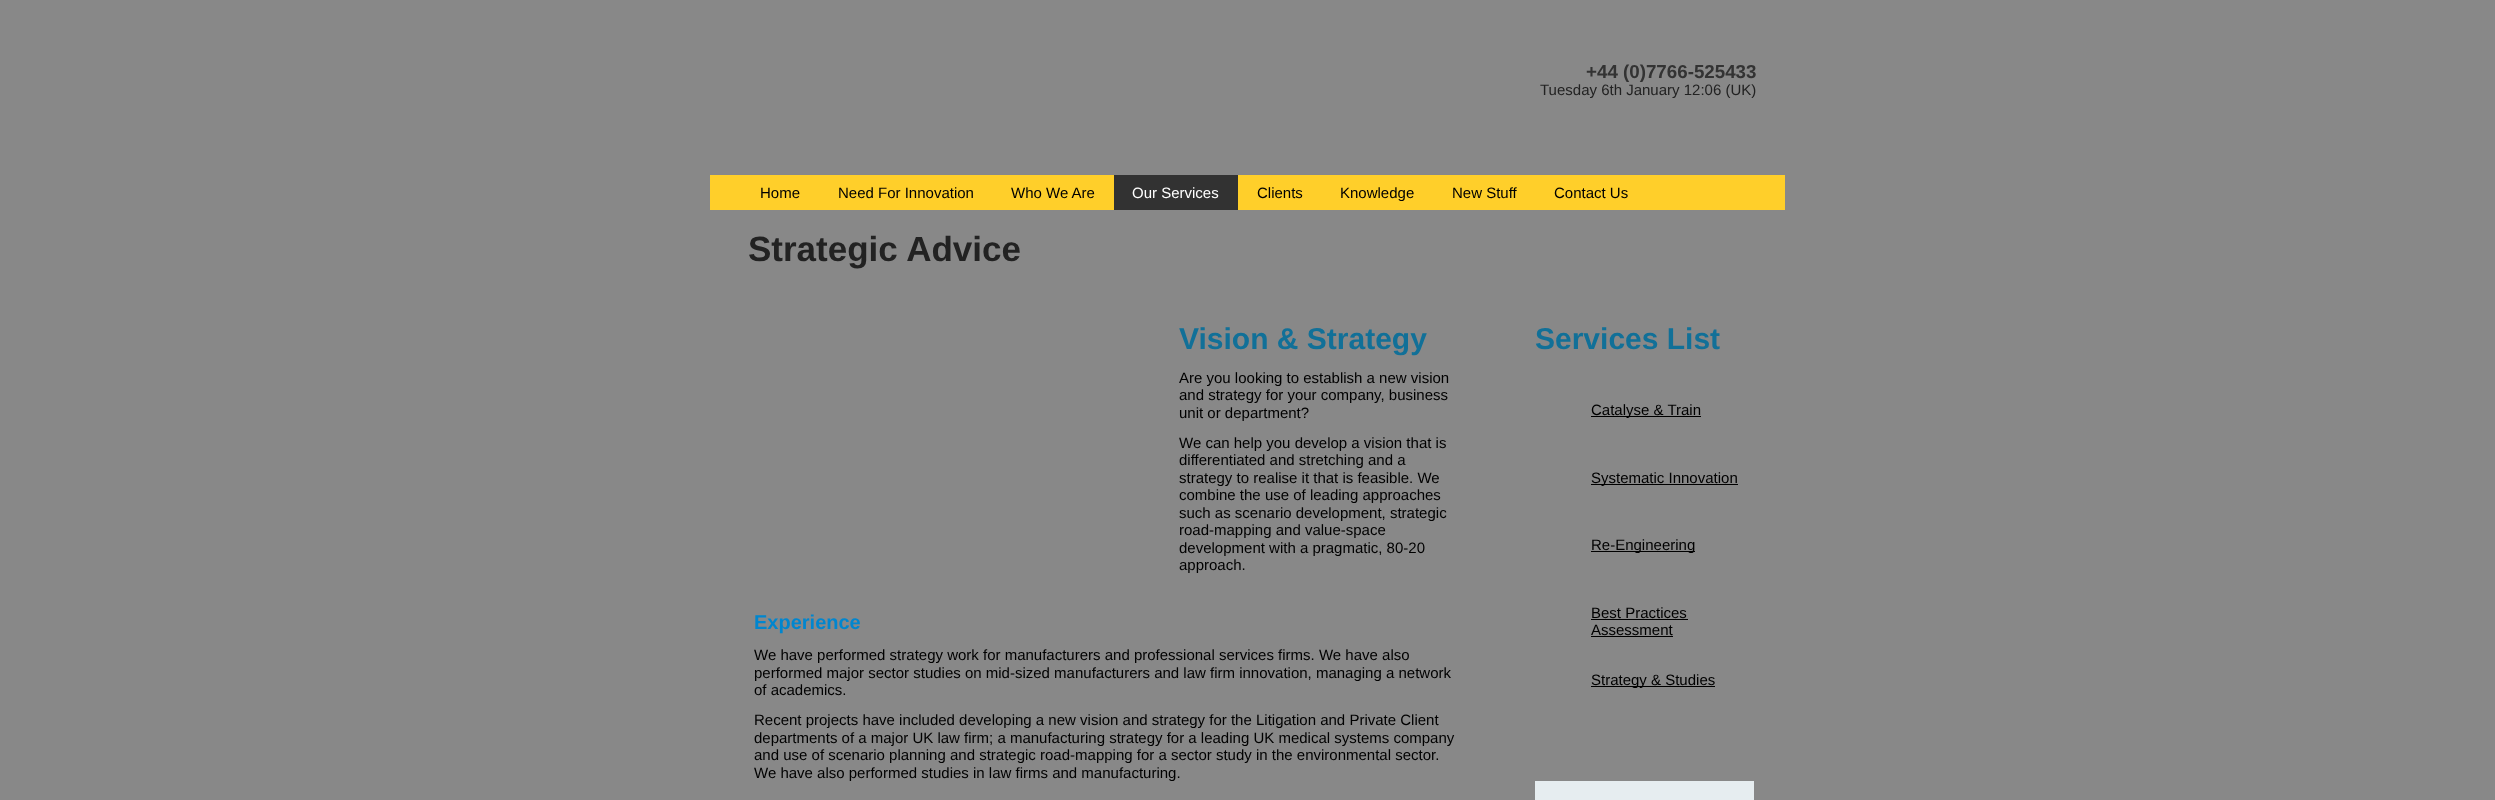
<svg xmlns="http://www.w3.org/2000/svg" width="2495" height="800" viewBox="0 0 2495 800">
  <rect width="100%" height="100%" fill="#888"/>
  <path d="M710 175h1075v35H710z" fill="#ffcf2a"/>
  <path d="M1114 175h124v35H1114z" fill="#323232"/>
  <path d="M1591 416h110v1H1591z" fill="#000"/>
  <path d="M1591 484h147v1H1591z" fill="#000"/>
  <path d="M1591 551h104v1H1591z" fill="#000"/>
  <path d="M1591 619h97v1H1591z" fill="#000"/>
  <path d="M1591 636h82v1H1591z" fill="#000"/>
  <path d="M1591 686h124v1H1591z" fill="#000"/>
  <path d="M1535 781h219v19H1535z" fill="#e6edf0"/>
  <text x="1586" y="78" font-family="Liberation Sans" font-size="18.75" font-weight="bold" fill="#333">+44 (0)7766-525433</text>
  <text x="1540" y="95" font-family="Liberation Sans" font-size="15" fill="#222">Tuesday 6th January 12:06 (UK)</text>
  <g font-family="Liberation Sans" font-size="15" fill="#000">
    <text x="760" y="198">Home</text>
    <text x="838" y="198">Need For Innovation</text>
    <text x="1011" y="198">Who We Are</text>
  </g>
  <text x="1132" y="198" font-family="Liberation Sans" font-size="15" fill="#fff">Our Services</text>
  <g font-family="Liberation Sans" font-size="15" fill="#000">
    <text x="1257" y="198">Clients</text>
    <text x="1340" y="198">Knowledge</text>
    <text x="1452" y="198">New Stuff</text>
    <text x="1554" y="198">Contact Us</text>
  </g>
  <text x="748" y="261" font-family="Liberation Sans" font-size="35" font-weight="bold" fill="#222">Strategic Advice</text>
  <text x="1179" y="349" font-family="Liberation Sans" font-size="30" font-weight="bold" fill="#117098">Vision &amp; Strategy</text>
  <g font-family="Liberation Sans" font-size="15" fill="#000">
    <text x="1179" y="383">Are you looking to establish a new vision</text>
    <text x="1179" y="400">and strategy for your company, business</text>
    <text x="1179" y="418">unit or department?</text>
    <text x="1179" y="448">We can help you develop a vision that is</text>
    <text x="1179" y="465">differentiated and stretching and a</text>
    <text x="1179" y="483">strategy to realise it that is feasible. We</text>
    <text x="1179" y="500">combine the use of leading approaches</text>
    <text x="1179" y="518">such as scenario development, strategic</text>
    <text x="1179" y="535">road-mapping and value-space</text>
    <text x="1179" y="553">development with a pragmatic, 80-20</text>
    <text x="1179" y="570">approach.</text>
  </g>
  <text x="754" y="629" font-family="Liberation Sans" font-size="20" font-weight="bold" fill="#0086cf">Experience</text>
  <g font-family="Liberation Sans" font-size="15" fill="#000">
    <text x="754" y="660">We have performed strategy work for manufacturers and professional services firms. We have also</text>
    <text x="754" y="678">performed major sector studies on mid-sized manufacturers and law firm innovation, managing a network</text>
    <text x="754" y="695">of academics.</text>
    <text x="754" y="725">Recent projects have included developing a new vision and strategy for the Litigation and Private Client</text>
    <text x="754" y="743">departments of a major UK law firm; a manufacturing strategy for a leading UK medical systems company</text>
    <text x="754" y="760">and use of scenario planning and strategic road-mapping for a sector study in the environmental sector.</text>
    <text x="754" y="778">We have also performed studies in law firms and manufacturing.</text>
  </g>
  <text x="1535" y="349" font-family="Liberation Sans" font-size="30" font-weight="bold" fill="#117098">Services List</text>
  <g font-family="Liberation Sans" font-size="15" fill="#000">
    <text x="1591" y="415">Catalyse &amp; Train</text>
    <text x="1591" y="483">Systematic Innovation</text>
    <text x="1591" y="550">Re-Engineering</text>
    <text x="1591" y="618">Best Practices</text>
    <text x="1591" y="635">Assessment</text>
    <text x="1591" y="685">Strategy &amp; Studies</text>
  </g>
</svg>
